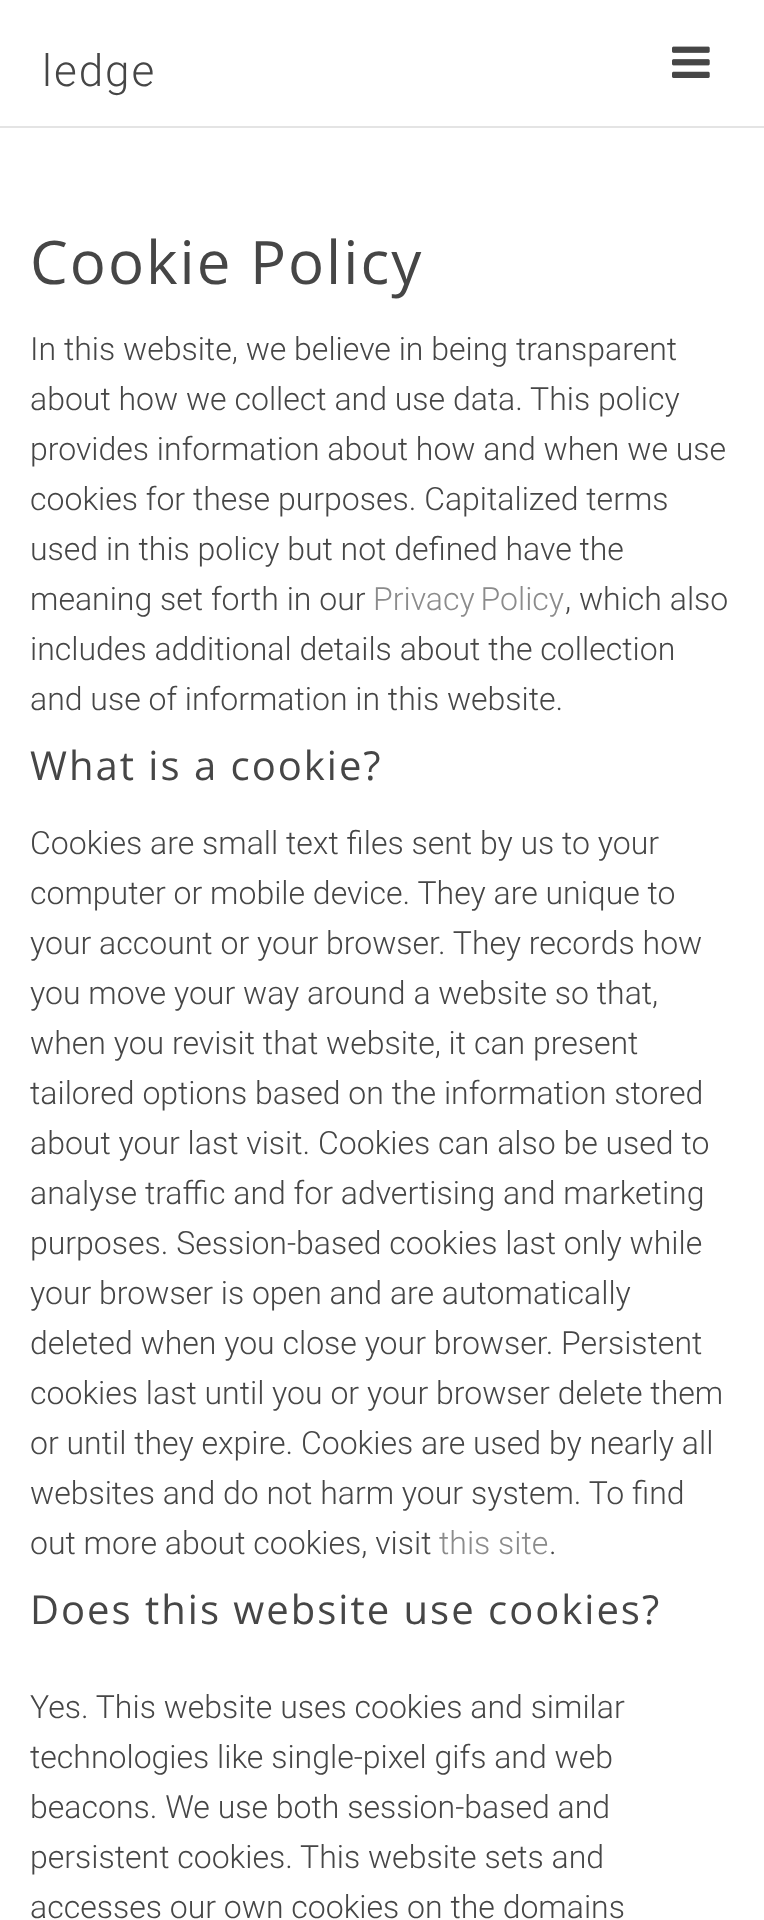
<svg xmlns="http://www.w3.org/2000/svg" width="764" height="1920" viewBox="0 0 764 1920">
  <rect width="100%" height="100%" fill="#fff"/>
  <path d="M0 126h764v2H0z" fill="#e4e4e4"/>
  <image x="672" y="46" width="38" height="32" href="img/1.png"/>
  <text x="42" y="86" font-family="Roboto" font-size="44" font-weight="300" letter-spacing="2" fill="#464646">ledge</text>
  <text x="30" y="284" font-family="Open Sans" font-size="60" letter-spacing="2" fill="#464646">Cookie Policy</text>
  <g font-family="Roboto" font-size="32" font-weight="300" fill="#464646">
    <text x="30" y="360">In this website, we believe in being transparent</text>
    <text x="30" y="410">about how we collect and use data. This policy</text>
    <text x="30" y="460">provides information about how and when we use</text>
    <text x="30" y="510">cookies for these purposes. Capitalized terms</text>
    <text x="30" y="560">used in this policy but not defined have the</text>
    <text x="30" y="610">meaning set forth in our</text>
  </g>
  <text x="373" y="610" word-spacing="-2" font-family="Roboto" font-size="32" font-weight="300" fill="#8b8b8b">Privacy Policy</text>
  <g font-family="Roboto" font-size="32" font-weight="300" fill="#464646">
    <text x="565" y="610">, which also</text>
    <text x="30" y="660">includes additional details about the collection</text>
    <text x="30" y="710">and use of information in this website.</text>
  </g>
  <text x="30" y="780" font-family="Open Sans" font-size="40" letter-spacing="2" fill="#464646">What is a cookie?</text>
  <g font-family="Roboto" font-size="32" font-weight="300" fill="#464646">
    <text x="30" y="854">Cookies are small text files sent by us to your</text>
    <text x="30" y="904">computer or mobile device. They are unique to</text>
    <text x="30" y="954">your account or your browser. They records how</text>
    <text x="30" y="1004">you move your way around a website so that,</text>
    <text x="30" y="1054">when you revisit that website, it can present</text>
    <text x="30" y="1104">tailored options based on the information stored</text>
    <text x="30" y="1154">about your last visit. Cookies can also be used to</text>
    <text x="30" y="1204">analyse traffic and for advertising and marketing</text>
    <text x="30" y="1254">purposes. Session-based cookies last only while</text>
    <text x="30" y="1304">your browser is open and are automatically</text>
    <text x="30" y="1354">deleted when you close your browser. Persistent</text>
    <text x="30" y="1404">cookies last until you or your browser delete them</text>
    <text x="30" y="1454">or until they expire. Cookies are used by nearly all</text>
    <text x="30" y="1504">websites and do not harm your system. To find</text>
    <text x="30" y="1554">out more about cookies, visit</text>
  </g>
  <text x="439" y="1554" font-family="Roboto" font-size="32" font-weight="300" fill="#8b8b8b">this site</text>
  <text x="549" y="1554" font-family="Roboto" font-size="32" font-weight="300" fill="#464646">.</text>
  <text x="30" y="1624" font-family="Open Sans" font-size="40" letter-spacing="2" fill="#464646">Does this website use cookies?</text>
  <g font-family="Roboto" font-size="32" font-weight="300" fill="#464646">
    <text x="30" y="1718">Yes. This website uses cookies and similar</text>
    <text x="30" y="1768">technologies like single-pixel gifs and web</text>
    <text x="30" y="1818">beacons. We use both session-based and</text>
    <text x="30" y="1868">persistent cookies. This website sets and</text>
    <text x="30" y="1918">accesses our own cookies on the domains</text>
  </g>
</svg>
